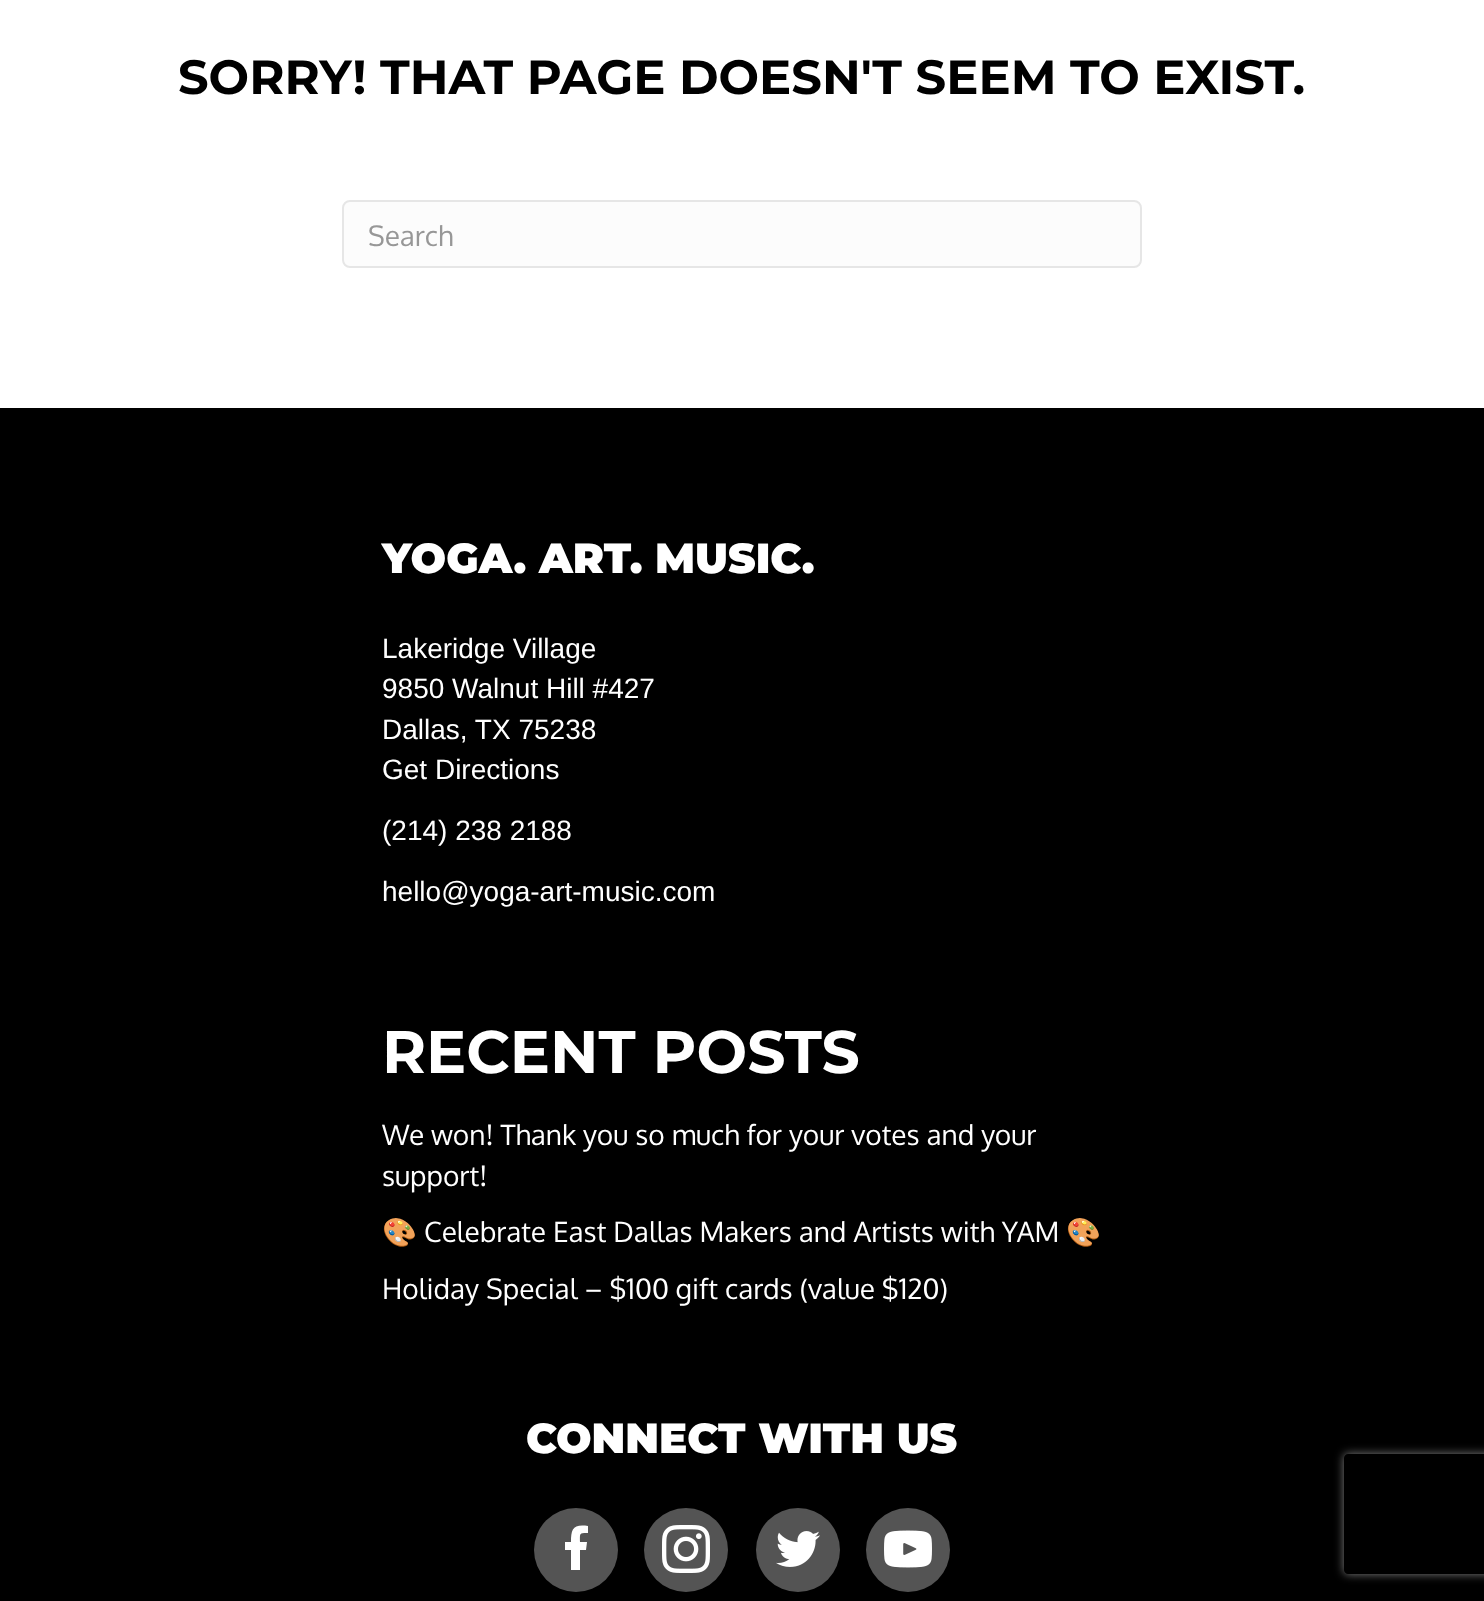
<svg xmlns="http://www.w3.org/2000/svg" width="1484" height="1601" viewBox="0 0 1484 1601">
  <defs>
    <clipPath id="clip1"><path d="M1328 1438H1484V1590H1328ZM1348 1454H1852C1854 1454 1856 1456 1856 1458V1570C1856 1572 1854 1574 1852 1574H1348C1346 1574 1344 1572 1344 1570V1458C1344 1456 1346 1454 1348 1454Z" clip-rule="evenodd"/></clipPath>
  </defs>
  <rect width="100%" height="100%" fill="#fff"/>
  <rect x="343" y="201" width="798" height="66" rx="7" fill="#fcfcfc" stroke="#e6e6e6" stroke-width="2"/>
  <path d="M0 408h1484v1193H0z" fill="#000"/>
  <circle cx="576" cy="1550" r="42" fill="#545454"/>
  <path d="M588 1526V1533C579 1533 580 1533 580 1542H587L586 1550H580V1570H571V1550H565V1542H571C571 1529 573 1524 588 1526Z" fill="#fff"/>
  <circle cx="686" cy="1550" r="42" fill="#545454"/>
  <image x="662" y="1525" width="48" height="48" href="img/1.png"/>
  <circle cx="798" cy="1550" r="42" fill="#545454"/>
  <image x="776" y="1531" width="44" height="36" href="img/2.png"/>
  <circle cx="908" cy="1550" r="42" fill="#545454"/>
  <image x="884" y="1530" width="48" height="38" href="img/3.png"/>
  <g clip-path="url(#clip1)">
    <rect x="1344" y="1454" width="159" height="120" rx="4" fill="#808080" filter="blur(5px)"/>
  </g>
  <text x="178" y="94" font-family="Montserrat" font-size="48" font-weight="bold" fill="#000">SORRY! THAT PAGE DOESN'T SEEM TO EXIST.</text>
  <text x="368" y="246" font-family="Oxygen" font-size="28" fill="#979797">Search</text>
  <text x="382" y="573" font-family="Montserrat" font-size="42" font-weight="900" fill="#fff">YOGA. ART. MUSIC.</text>
  <g font-family="Liberation Sans" font-size="28" fill="#fff">
    <text x="382" y="658">Lakeridge Village</text>
    <text x="382" y="698">9850 Walnut Hill #427</text>
    <text x="382" y="739">Dallas, TX 75238</text>
    <text x="382" y="779">Get Directions</text>
    <text x="382" y="840">(214) 238 2188</text>
    <text x="382" y="901">hello@yoga-art-music.com</text>
  </g>
  <text x="382" y="1073" font-family="Montserrat" font-size="60" font-weight="bold" fill="#fff">RECENT POSTS</text>
  <g font-family="Oxygen" font-size="28" fill="#fff">
    <text x="382" y="1145">We won! Thank you so much for your votes and your</text>
    <text x="382" y="1186">support!</text>
  </g>
  <text x="382" y="1242" font-family="Noto Color Emoji" font-size="28" fill="#fff">🎨</text>
  <text x="424" y="1242" font-family="Oxygen" font-size="28" fill="#fff">Celebrate East Dallas Makers and Artists with YAM</text>
  <text x="1066" y="1242" font-family="Noto Color Emoji" font-size="28" fill="#fff">🎨</text>
  <text x="382" y="1299" font-family="Oxygen" font-size="28" fill="#fff">Holiday Special – $100 gift cards (value $120)</text>
  <text x="526" y="1453" font-family="Montserrat" font-size="42" font-weight="900" fill="#fff">CONNECT WITH US</text>
</svg>
